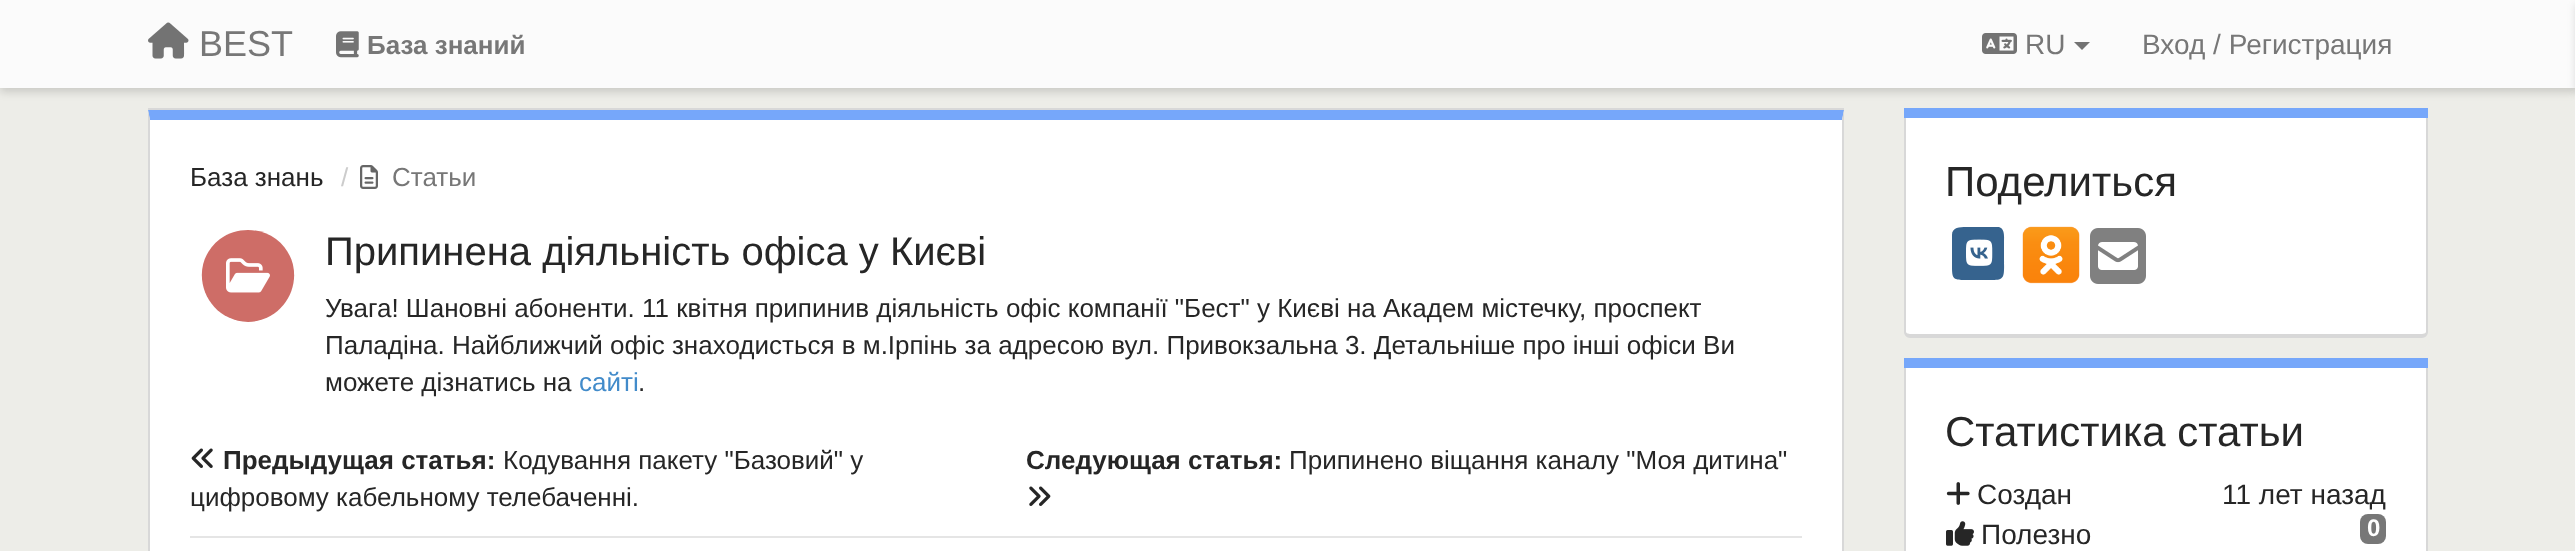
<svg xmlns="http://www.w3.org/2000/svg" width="2575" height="551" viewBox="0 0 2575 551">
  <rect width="100%" height="100%" fill="#edede8"/>
  <path d="M0 4h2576v88H0z" fill="#00000026" filter="blur(4px)"/>
  <path d="M0 0h2575v88H0z" fill="#fbfbfb"/>
  <image x="148" y="22" width="41" height="37" href="img/1.png"/>
  <image x="336" y="31" width="23" height="27" href="img/2.png"/>
  <image x="1982" y="33" width="35" height="21" href="img/3.png"/>
  <path d="M2074 42H2090L2082 50Z" fill="#737373"/>
  <path d="M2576 4h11v88H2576z" fill="#00000026" filter="blur(4px)"/>
  <path d="M148 108h1696v2H148z" fill="#d8d8d8"/>
  <path d="M150 120H1842V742C1842 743 1840 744 1838 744H154C152 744 150 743 150 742Z" fill="#fff"/>
  <path d="M148 110L150 120H1842L1844 110Z" fill="#76a7fa"/>
  <path d="M1844 110L1842 120V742L1841 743L1843 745L1844 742Z" fill="#d8d8d8"/>
  <path d="M150 120L148 110V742L149 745L151 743L150 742Z" fill="#d8d8d8"/>
  <image x="360" y="165" width="18" height="24" href="img/4.png"/>
  <path d="M248 322C292 321 311 266 276 239C268 233 258 230 248 230C238 230 228 233 220 239C185 266 204 321 248 322Z" fill="#ce6d67"/>
  <image x="226" y="258" width="44" height="35" href="img/5.png"/>
  <image x="191" y="448" width="22" height="20" href="img/6.png"/>
  <image x="1029" y="486" width="22" height="20" href="img/7.png"/>
  <path d="M190 536h1612v2H190z" fill="#e5e5e5"/>
  <path d="M1904 108h524v10H1904z" fill="#76a7fa"/>
  <path d="M1906 118H2426V332C2426 333 2424 334 2422 334H1910C1908 334 1906 333 1906 332Z" fill="#fff"/>
  <path d="M1904 118H2428V332C2428 335 2425 338 2422 338H1910C1907 338 1904 335 1904 332ZM1906 118H2426V332C2426 333 2424 334 2422 334H1910C1908 334 1906 333 1906 332Z" fill="#d8d8d8" fill-rule="evenodd"/>
  <path d="M1952 235C1952 227 1960 227 1966 227H1999C2005 229 2004 236 2004 241V254C2004 283 2007 280 1978 280H1966C1953 280 1952 279 1952 266Z" fill="#36638e"/>
  <image x="1966" y="239" width="27" height="27" href="img/8.png"/>
  <image x="2022" y="226" width="58" height="58" href="img/9.png"/>
  <image x="2090" y="228" width="56" height="56" href="img/10.png"/>
  <path d="M1904 358h524v10H1904z" fill="#76a7fa"/>
  <path d="M1906 368H2426V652C2426 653 2424 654 2422 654H1910C1908 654 1906 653 1906 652Z" fill="#fff"/>
  <path d="M1904 368H2428V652C2428 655 2425 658 2422 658H1910C1907 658 1904 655 1904 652ZM1906 368H2426V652C2426 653 2424 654 2422 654H1910C1908 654 1906 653 1906 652Z" fill="#d8d8d8" fill-rule="evenodd"/>
  <image x="1946" y="482" width="24" height="23" href="img/11.png"/>
  <image x="1946" y="521" width="28" height="25" href="img/12.png"/>
  <rect x="2360" y="514" width="26" height="30" rx="8" fill="#777"/>
  <text x="199" y="56" font-family="Liberation Sans" font-size="36" fill="#777">BEST</text>
  <text x="367" y="54" font-family="Liberation Sans" font-size="26" font-weight="bold" fill="#777">База знаний</text>
  <g font-family="Liberation Sans" font-size="28" fill="#777">
    <text x="2025" y="54">RU</text>
    <text x="2142" y="54">Вход / Регистрация</text>
  </g>
  <text x="190" y="186" font-family="Liberation Sans" font-size="26" fill="#262626">База знань</text>
  <text x="341" y="186" font-family="Liberation Sans" font-size="26" fill="#ccc">/</text>
  <text x="392" y="186" font-family="Liberation Sans" font-size="26" fill="#777">Статьи</text>
  <text x="325" y="265" font-family="Liberation Sans" font-size="40" fill="#262626">Припинена діяльність офіса у Києві</text>
  <g font-family="Liberation Sans" font-size="26" fill="#262626">
    <text x="325" y="317">Увага! Шановні абоненти. 11 квітня припинив діяльність офіс компанії "Бест" у Києві на Академ містечку, проспект</text>
    <text x="325" y="354">Паладіна. Найближчий офіс знаходисться в м.Ірпінь за адресою вул. Привокзальна 3. Детальніше про інші офіси Ви</text>
    <text x="325" y="391">можете дізнатись на</text>
  </g>
  <text x="579" y="391" font-family="Liberation Sans" font-size="26" fill="#428bca">сайті</text>
  <text x="638" y="391" font-family="Liberation Sans" font-size="26" fill="#262626">.</text>
  <text x="223" y="469" font-family="Liberation Sans" font-size="26" font-weight="bold" fill="#262626">Предыдущая статья:</text>
  <g font-family="Liberation Sans" font-size="26" fill="#262626">
    <text x="503" y="469">Кодування пакету "Базовий" у</text>
    <text x="190" y="506">цифровому кабельному телебаченні.</text>
  </g>
  <text x="1026" y="469" font-family="Liberation Sans" font-size="26" font-weight="bold" fill="#262626">Следующая статья:</text>
  <text x="1289" y="469" font-family="Liberation Sans" font-size="26" fill="#262626">Припинено віщання каналу "Моя дитина"</text>
  <g font-family="Liberation Sans" font-size="42" fill="#262626">
    <text x="1945" y="196">Поделиться</text>
    <text x="1945" y="446">Статистика статьи</text>
  </g>
  <g font-family="Liberation Sans" font-size="28" fill="#262626">
    <text x="1977" y="504">Создан</text>
    <text x="2222" y="504">11 лет назад</text>
    <text x="1981" y="544">Полезно</text>
  </g>
  <text x="2367" y="536" font-family="Liberation Sans" font-size="24" font-weight="bold" fill="#fff">0</text>
</svg>
